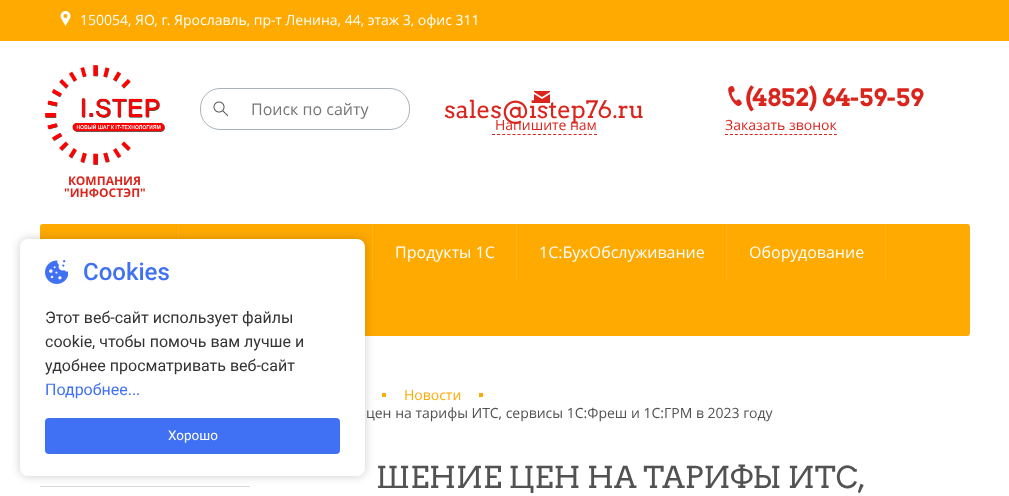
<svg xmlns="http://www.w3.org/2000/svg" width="1009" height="496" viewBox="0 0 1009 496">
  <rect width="100%" height="100%" fill="#fff"/>
  <path d="M0 0h1009v41H0z" fill="#fa0"/>
  <image x="60" y="11" width="11" height="15" href="img/1.png"/>
  <rect x="200.5" y="88.5" width="209" height="41" rx="19.5" fill="none" stroke="#a9b2bb"/>
  <image x="213" y="101" width="16" height="16" href="img/2.png"/>
  <path d="M492 134.5H597" fill="none" stroke="#da251d" stroke-dasharray="3 2.1"/>
  <image x="728" y="86" width="14" height="20" href="img/4.png"/>
  <path d="M725 134.5H837" fill="none" stroke="#da251d" stroke-dasharray="3 1.95"/>
  <image x="45" y="65" width="120" height="100" href="img/5.png"/>
  <rect x="40" y="224" width="930" height="112" rx="3" fill="#fa0"/>
  <path d="M178 224h1v15H178z" fill="#ffb31a"/>
  <path d="M372 224h1v56H372z" fill="#ffb31a"/>
  <path d="M516 224h1v56H516z" fill="#ffb31a"/>
  <path d="M726 224h1v56H726z" fill="#ffb31a"/>
  <path d="M885 224h1v56H885z" fill="#ffb31a"/>
  <path d="M40 486h210v1H40z" fill="#d8dcdf"/>
  <rect x="20" y="239" width="345" height="237" rx="8" fill="#00000033" filter="blur(5px)"/>
  <rect x="20" y="239" width="345" height="237" rx="8" fill="#fff"/>
  <image x="45" y="260" width="23" height="24" href="img/6.png"/>
  <rect x="45" y="418" width="295" height="36" rx="4" fill="#4070f4"/>
  <path d="M382 393h4v4H382z" fill="#fa0"/>
  <path d="M479 393h4v4H479z" fill="#fa0"/>
  <text x="80" y="25" font-family="Open Sans" font-size="14" fill="#fff">150054, ЯО, г. Ярославль, пр-т Ленина, 44, этаж 3, офис 311</text>
  <text x="251" y="115" font-family="Open Sans" font-size="16" fill="#757575">Поиск по сайту</text>
  <text x="444" y="118" font-family="Arvo" font-size="24" fill="#da251d">sales@istep76.ru</text>
  <image x="534" y="91" width="16" height="12" href="img/3.png"/>
  <text x="495" y="130" font-family="Open Sans" font-size="14" fill="#da251d">Напишите нам</text>
  <text x="745" y="106" font-family="Arvo" font-size="24" font-weight="bold" fill="#da251d">(4852) 64-59-59</text>
  <text x="725" y="130" font-family="Open Sans" font-size="14" fill="#da251d">Заказать звонок</text>
  <g font-family="Open Sans" font-size="12" font-weight="bold" fill="#da251d">
    <text x="68" y="185">КОМПАНИЯ</text>
    <text x="64" y="197">"ИНФОСТЭП"</text>
  </g>
  <g font-family="Open Sans" font-size="16" fill="#fff">
    <text x="395" y="258">Продукты 1С</text>
    <text x="539" y="258">1С:БухОбслуживание</text>
    <text x="749" y="258">Оборудование</text>
  </g>
  <text x="83" y="280" font-family="Roboto" font-size="24" font-weight="500" fill="#4070f4">Cookies</text>
  <g font-family="Roboto" font-size="16" fill="#333">
    <text x="45" y="323">Этот веб-сайт использует файлы</text>
    <text x="45" y="347">cookie, чтобы помочь вам лучше и</text>
    <text x="45" y="371">удобнее просматривать веб-сайт</text>
  </g>
  <text x="45" y="395" font-family="Roboto" font-size="16" fill="#4070f4">Подробнее...</text>
  <text x="168" y="440" font-family="Roboto" font-size="13.5" fill="#fff">Хорошо</text>
  <text x="404" y="400" font-family="Open Sans" font-size="14" fill="#fa0">Новости</text>
  <text x="366" y="418" font-family="Open Sans" font-size="14" fill="#525252">цен на тарифы ИТС, сервисы 1С:Фреш и 1С:ГРМ в 2023 году</text>
  <text x="376" y="488" font-family="Arvo" font-size="30" fill="#525252">ШЕНИЕ ЦЕН НА ТАРИФЫ ИТС,</text>
</svg>
